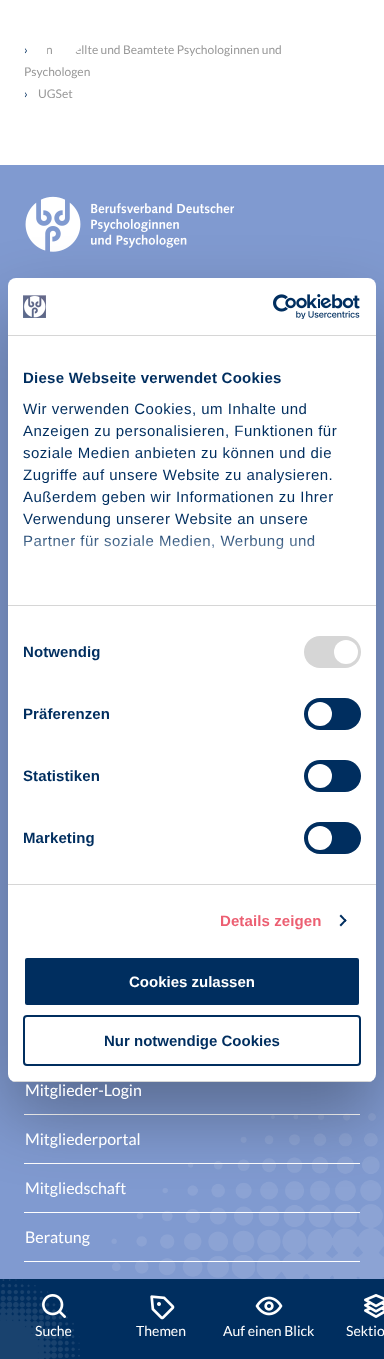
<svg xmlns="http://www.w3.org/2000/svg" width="384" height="1359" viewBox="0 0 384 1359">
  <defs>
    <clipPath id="clip1"><rect x="8" y="278" width="368" height="804" rx="8"/></clipPath>
    <linearGradient id="g1" gradientUnits="userSpaceOnUse" x1="186" y1="605" x2="186" y2="530"><stop offset="0" stop-color="#fff"/><stop offset="0.5" stop-color="#fff" stop-opacity="0.8"/><stop offset="1" stop-color="#fff" stop-opacity="0"/></linearGradient>
  </defs>
  <rect width="100%" height="100%" fill="#fff"/>
  <path d="M0 165h384v1114H0z" fill="#809ad0"/>
  <image x="111" y="1113" width="273" height="166" href="img/2.png"/>
  <image x="25" y="196" width="210" height="56" href="img/3.png"/>
  <path d="M24 1114h336v1H24z" fill="#fff"/>
  <path d="M24 1163h336v1H24z" fill="#fff"/>
  <path d="M24 1212h336v1H24z" fill="#fff"/>
  <path d="M24 1261h336v1H24z" fill="#fff"/>
  <path d="M0 1279h384v80H0z" fill="#002e5f"/>
  <image x="0" y="1279" width="80" height="80" href="img/4.png"/>
  <image x="42" y="1294" width="24" height="24" href="img/5.png"/>
  <image x="150" y="1295" width="25" height="25" href="img/6.png"/>
  <image x="255" y="1296" width="28" height="20" href="img/7.png"/>
  <image x="364" y="1294" width="20" height="24" href="img/8.png"/>
  <rect x="8" y="310" width="368" height="804" rx="8" fill="#0000004d" filter="blur(34px)"/>
  <rect x="8" y="278" width="368" height="804" rx="8" fill="#fff"/>
  <path d="M8 335h368v1H8z" fill="#d6d6d6"/>
  <image x="23" y="295" width="23" height="23" href="img/9.png"/>
  <image x="273" y="294" width="87" height="25" href="img/10.png"/>
  <path d="M8 605h368v1H8z" fill="#d6d6d6"/>
  <path d="M8 884h368v1H8z" fill="#d6d6d6"/>
  <rect x="304" y="636" width="57" height="32" rx="16" fill="#d6d6d6"/>
  <circle cx="346" cy="652" r="12" fill="#fff"/>
  <rect x="304" y="698" width="57" height="32" rx="16" fill="#002e5f"/>
  <circle cx="320" cy="714" r="12" fill="#fff"/>
  <rect x="304" y="760" width="57" height="32" rx="16" fill="#002e5f"/>
  <circle cx="320" cy="776" r="12" fill="#fff"/>
  <rect x="304" y="822" width="57" height="32" rx="16" fill="#002e5f"/>
  <circle cx="320" cy="838" r="12" fill="#fff"/>
  <path d="M341 914.5L346.5 920.5L345.5 922L339.5 916Z" fill="#002e5f"/>
  <path d="M345.5 919L346.5 920.5L341 926.5L339.5 925Z" fill="#002e5f"/>
  <g clip-path="url(#clip1)">
    <path d="M8 1081h368v1H8z" fill="#d6d6d6"/>
  </g>
  <rect x="24" y="957" width="336" height="49" rx="3" fill="#002e5f" stroke="#fff" stroke-width="2"/>
  <rect x="24" y="1016" width="336" height="49" rx="3" fill="none" stroke="#002e5f" stroke-width="2"/>
  <text x="24" y="54" font-family="Lato" font-size="12" fill="#002e5f">›</text>
  <g font-family="Lato" font-size="12" fill="#999">
    <text x="46" y="54">n</text>
    <text x="75" y="54">ellte und Beamtete Psychologinnen und</text>
  </g>
  <image x="25" y="22" width="58" height="35" href="img/1.png"/>
  <text x="24" y="76" font-family="Lato" font-size="12" fill="#999">Psychologen</text>
  <text x="24" y="98" font-family="Lato" font-size="12" fill="#002e5f">›</text>
  <text x="38" y="98" font-family="Lato" font-size="12" fill="#999">UGSet</text>
  <g font-family="Lato" font-size="16" fill="#fff">
    <text x="25" y="1096">Mitglieder-Login</text>
    <text x="25" y="1145">Mitgliederportal</text>
    <text x="25" y="1194">Mitgliedschaft</text>
    <text x="25" y="1243">Beratung</text>
  </g>
  <g font-family="Lato" font-size="14" fill="#fff">
    <text x="35" y="1336">Suche</text>
    <text x="136" y="1336">Themen</text>
    <text x="223" y="1336">Auf einen Blick</text>
    <text x="346" y="1336">Sektio</text>
  </g>
  <text x="23" y="383" font-family="Liberation Sans" font-size="15" font-weight="bold" letter-spacing="0.25" fill="#002e5f">Diese Webseite verwendet Cookies</text>
  <g font-family="Liberation Sans" font-size="15" letter-spacing="0.5" fill="#002e5f">
    <text x="23" y="414">Wir verwenden Cookies, um Inhalte und</text>
    <text x="23" y="436">Anzeigen zu personalisieren, Funktionen für</text>
    <text x="23" y="458">soziale Medien anbieten zu können und die</text>
    <text x="23" y="480">Zugriffe auf unsere Website zu analysieren.</text>
    <text x="23" y="502">Außerdem geben wir Informationen zu Ihrer</text>
    <text x="23" y="524">Verwendung unserer Website an unsere</text>
    <text x="23" y="546">Partner für soziale Medien, Werbung und</text>
  </g>
  <path d="M24 535h291v15H24z" fill="url(#g1)"/>
  <g font-family="Liberation Sans" font-size="15" font-weight="bold" letter-spacing="0.1" fill="#002e5f">
    <text x="23" y="657">Notwendig</text>
    <text x="23" y="719">Präferenzen</text>
    <text x="23" y="781">Statistiken</text>
    <text x="23" y="843">Marketing</text>
  </g>
  <text x="220" y="926" font-family="Liberation Sans" font-size="15" font-weight="bold" letter-spacing="0.1" fill="#ec5f72">Details zeigen</text>
  <text x="129" y="987" font-family="Liberation Sans" font-size="15" font-weight="bold" fill="#fff">Cookies zulassen</text>
  <text x="104" y="1046" font-family="Liberation Sans" font-size="15" font-weight="bold" fill="#002e5f">Nur notwendige Cookies</text>
</svg>
